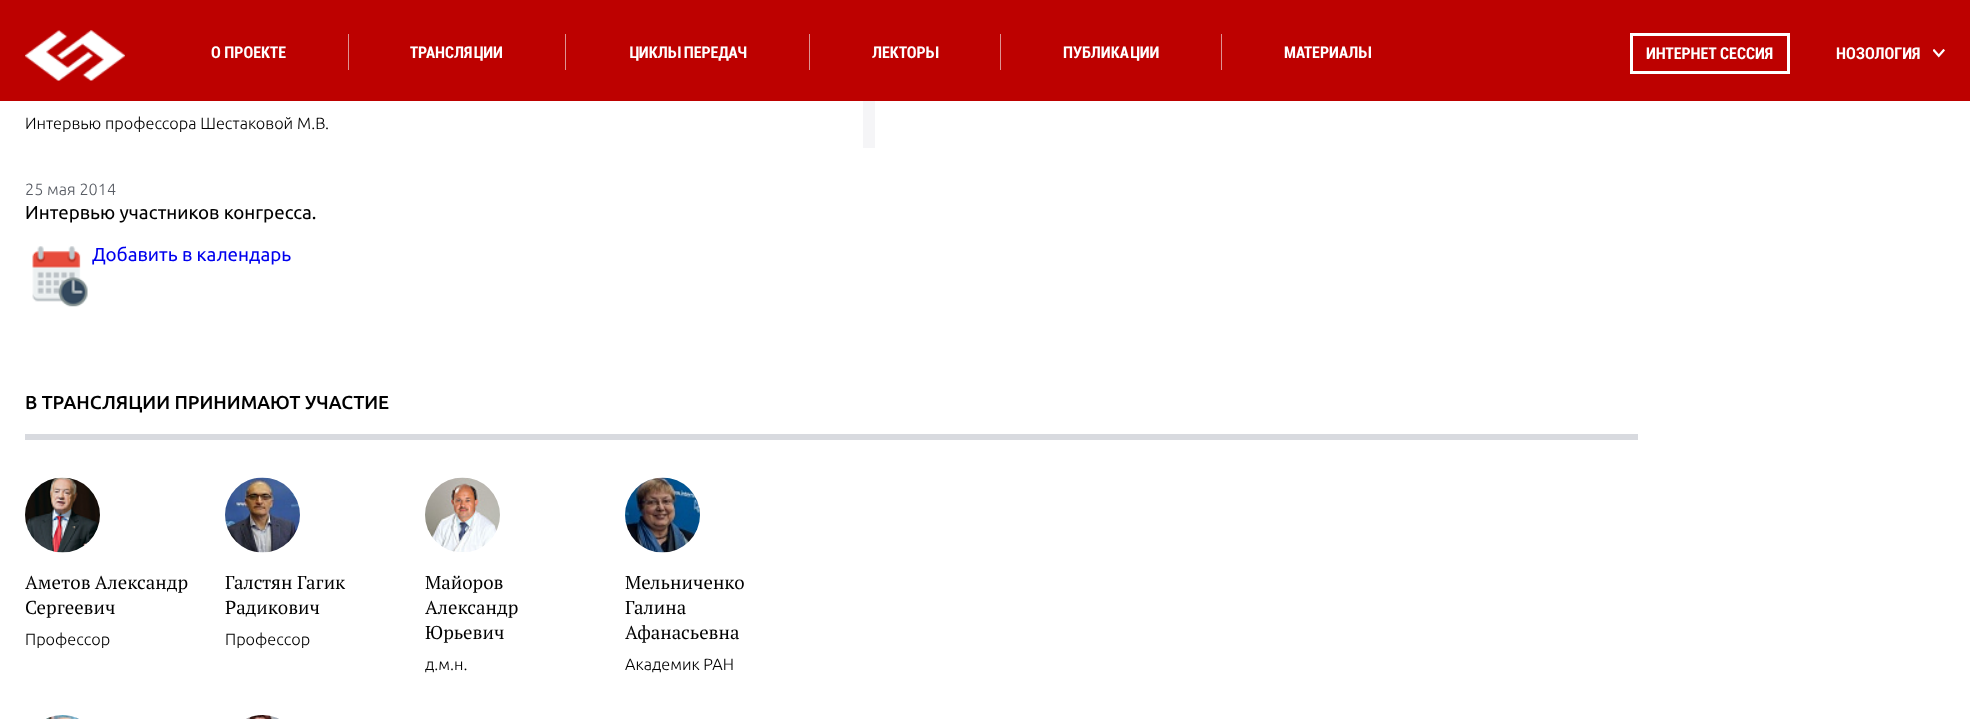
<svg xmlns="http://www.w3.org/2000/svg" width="1970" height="719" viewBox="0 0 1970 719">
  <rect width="100%" height="100%" fill="#fff"/>
  <path d="M0 0h1970v101H0z" fill="#bd0100"/>
  <image x="25" y="30" width="100" height="51" href="img/1.png"/>
  <path d="M348 34h1v36H348z" fill="#de9392"/>
  <path d="M565 34h1v36H565z" fill="#de9392"/>
  <path d="M809 34h1v36H809z" fill="#de9392"/>
  <path d="M1000 34h1v36H1000z" fill="#de9392"/>
  <path d="M1221 34h1v36H1221z" fill="#de9392"/>
  <path d="M1631.5 34.5h157v38H1631.5z" fill="none" stroke="#fff" stroke-width="3"/>
  <image x="1933" y="49" width="12" height="9" href="img/2.png"/>
  <path d="M863 101h12v47H863z" fill="#f5f5f7"/>
  <image x="32" y="246" width="56" height="61" href="img/3.png"/>
  <path d="M25 434h1613v6H25z" fill="#d8dadf"/>
  <image x="25" y="477" width="75" height="76" href="img/4.png"/>
  <image x="225" y="477" width="75" height="76" href="img/5.png"/>
  <image x="425" y="477" width="75" height="75" href="img/6.png"/>
  <image x="625" y="477" width="75" height="76" href="img/7.png"/>
  <image x="46" y="715" width="33" height="4" href="img/8.png"/>
  <image x="246" y="715" width="33" height="4" href="img/9.png"/>
  <g font-family="Roboto" font-size="16.25" font-weight="bold" fill="#fff">
    <text x="211" y="58">О ПРОЕКТЕ</text>
    <text x="410" y="58">ТРАНСЛЯЦИИ</text>
    <text x="628" y="58">ЦИКЛЫ ПЕРЕДАЧ</text>
    <text x="872" y="58">ЛЕКТОРЫ</text>
    <text x="1063" y="58">ПУБЛИКАЦИИ</text>
    <text x="1284" y="58">МАТЕРИАЛЫ</text>
    <text x="1646" y="59">ИНТЕРНЕТ СЕССИЯ</text>
    <text x="1836" y="59">НОЗОЛОГИЯ</text>
  </g>
  <text x="25" y="129" font-family="Ubuntu" font-size="16.25" font-weight="300" fill="#000">Интервью профессора Шестаковой М.В.</text>
  <text x="25" y="195" font-family="Ubuntu" font-size="16.25" font-weight="300" fill="#585c64">25 мая 2014</text>
  <text x="25" y="219" font-family="Ubuntu" font-size="18.75" fill="#000">Интервью участников конгресса.</text>
  <text x="92" y="261" font-family="Ubuntu" font-size="18.75" fill="#00e">Добавить в календарь</text>
  <text x="25" y="409" font-family="Ubuntu" font-size="18.75" font-weight="500" fill="#000">В ТРАНСЛЯЦИИ ПРИНИМАЮТ УЧАСТИЕ</text>
  <g font-family="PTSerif" font-size="18.75" fill="#000">
    <text x="25" y="589">Аметов Александр</text>
    <text x="25" y="614">Сергеевич</text>
  </g>
  <text x="25" y="645" font-family="Ubuntu" font-size="16.25" font-weight="300" fill="#000">Профессор</text>
  <g font-family="PTSerif" font-size="18.75" fill="#000">
    <text x="225" y="589">Галстян Гагик</text>
    <text x="225" y="614">Радикович</text>
  </g>
  <text x="225" y="645" font-family="Ubuntu" font-size="16.25" font-weight="300" fill="#000">Профессор</text>
  <g font-family="PTSerif" font-size="18.75" fill="#000">
    <text x="425" y="589">Майоров</text>
    <text x="425" y="614">Александр</text>
    <text x="425" y="639">Юрьевич</text>
  </g>
  <text x="425" y="670" font-family="Ubuntu" font-size="16.25" font-weight="300" fill="#000">д.м.н.</text>
  <g font-family="PTSerif" font-size="18.75" fill="#000">
    <text x="625" y="589">Мельниченко</text>
    <text x="625" y="614">Галина</text>
    <text x="625" y="639">Афанасьевна</text>
  </g>
  <text x="625" y="670" font-family="Ubuntu" font-size="16.25" font-weight="300" fill="#000">Академик РАН</text>
</svg>
